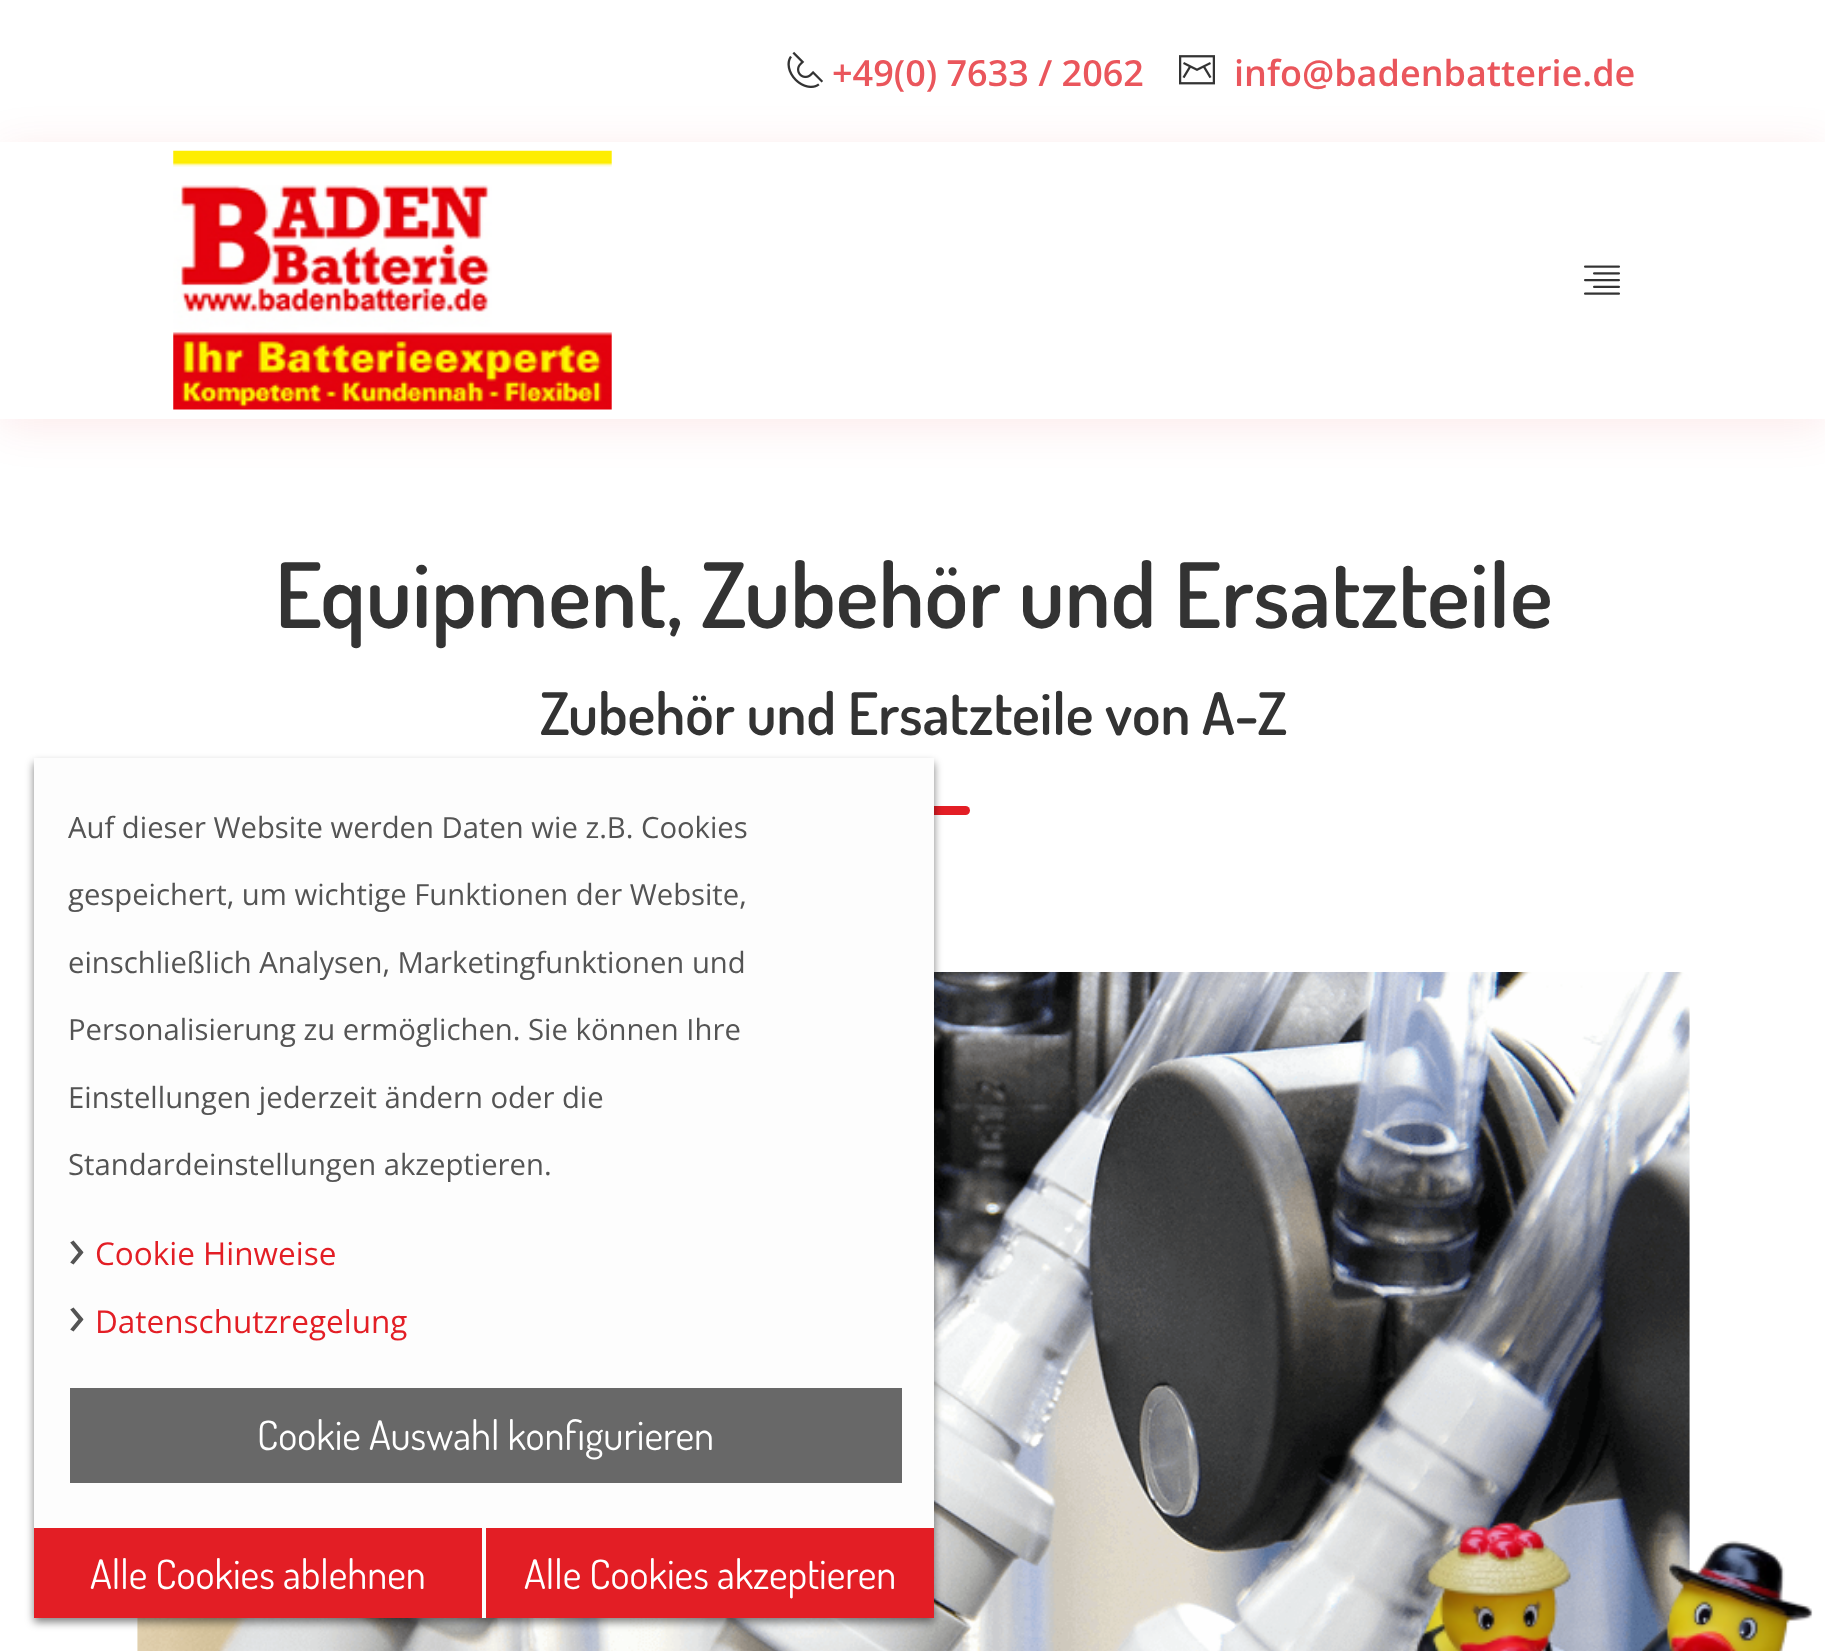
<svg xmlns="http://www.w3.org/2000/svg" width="1825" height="1651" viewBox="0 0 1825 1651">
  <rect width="100%" height="100%" fill="#fff"/>
  <image x="787" y="51" width="36" height="37" href="img/1.png"/>
  <image x="1179" y="55" width="36" height="30" href="img/2.png"/>
  <path d="M0 149h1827v276H0z" fill="#e31e251a" filter="blur(22.5px)"/>
  <path d="M0 142h1825v277H0z" fill="#fff"/>
  <image x="173" y="150" width="439" height="260" href="img/3.png"/>
  <image x="1584" y="265" width="36" height="30" href="img/4.png"/>
  <rect x="857" y="806" width="113" height="9" rx="4.5" fill="#e31e25"/>
  <image x="137" y="972" width="1553" height="679" href="img/5.png"/>
  <path d="M34 763h900v859H34z" fill="#00000080" filter="blur(4.5px)"/>
  <path d="M34 758h900v860H34z" fill="#fdfdfd"/>
  <path d="M70 1388h832v95H70z" fill="#686868"/>
  <path d="M34 1528h448v90H34z" fill="#e31e25"/>
  <path d="M486 1528h448v90H486z" fill="#e31e25"/>
  <image x="1414" y="1520" width="399" height="131" href="img/6.png"/>
  <g font-family="Open Sans" font-size="36" font-weight="600" fill="#ea565c">
    <text x="832" y="86">+49(0) 7633 / 2062</text>
    <text x="1234" y="86">info@badenbatterie.de</text>
  </g>
  <text x="275" y="628" font-family="Dosis" font-size="90" font-weight="600" fill="#333">Equipment, Zubehör und Ersatzteile</text>
  <text x="540" y="735" font-family="Dosis" font-size="58.5" font-weight="600" fill="#333">Zubehör und Ersatzteile von A-Z</text>
  <g font-family="Open Sans" font-size="29.25" fill="#545454">
    <text x="68" y="838">Auf dieser Website werden Daten wie z.B. Cookies</text>
    <text x="68" y="905">gespeichert, um wichtige Funktionen der Website,</text>
    <text x="68" y="973">einschließlich Analysen, Marketingfunktionen und</text>
    <text x="68" y="1040">Personalisierung zu ermöglichen. Sie können Ihre</text>
    <text x="68" y="1108">Einstellungen jederzeit ändern oder die</text>
    <text x="68" y="1175">Standardeinstellungen akzeptieren.</text>
  </g>
  <text x="68" y="1268" font-family="Open Sans" font-size="58.5" fill="#545454">›</text>
  <text x="95" y="1265" font-family="Open Sans" font-size="31.5" fill="#e31e25">Cookie Hinweise</text>
  <text x="68" y="1335" font-family="Open Sans" font-size="58.5" fill="#545454">›</text>
  <text x="95" y="1333" font-family="Open Sans" font-size="31.5" fill="#e31e25">Datenschutzregelung</text>
  <g font-family="Dosis" font-size="40.5" fill="#fff">
    <text x="257" y="1450">Cookie Auswahl konfigurieren</text>
    <text x="90" y="1589">Alle Cookies ablehnen</text>
    <text x="524" y="1589">Alle Cookies akzeptieren</text>
  </g>
</svg>
